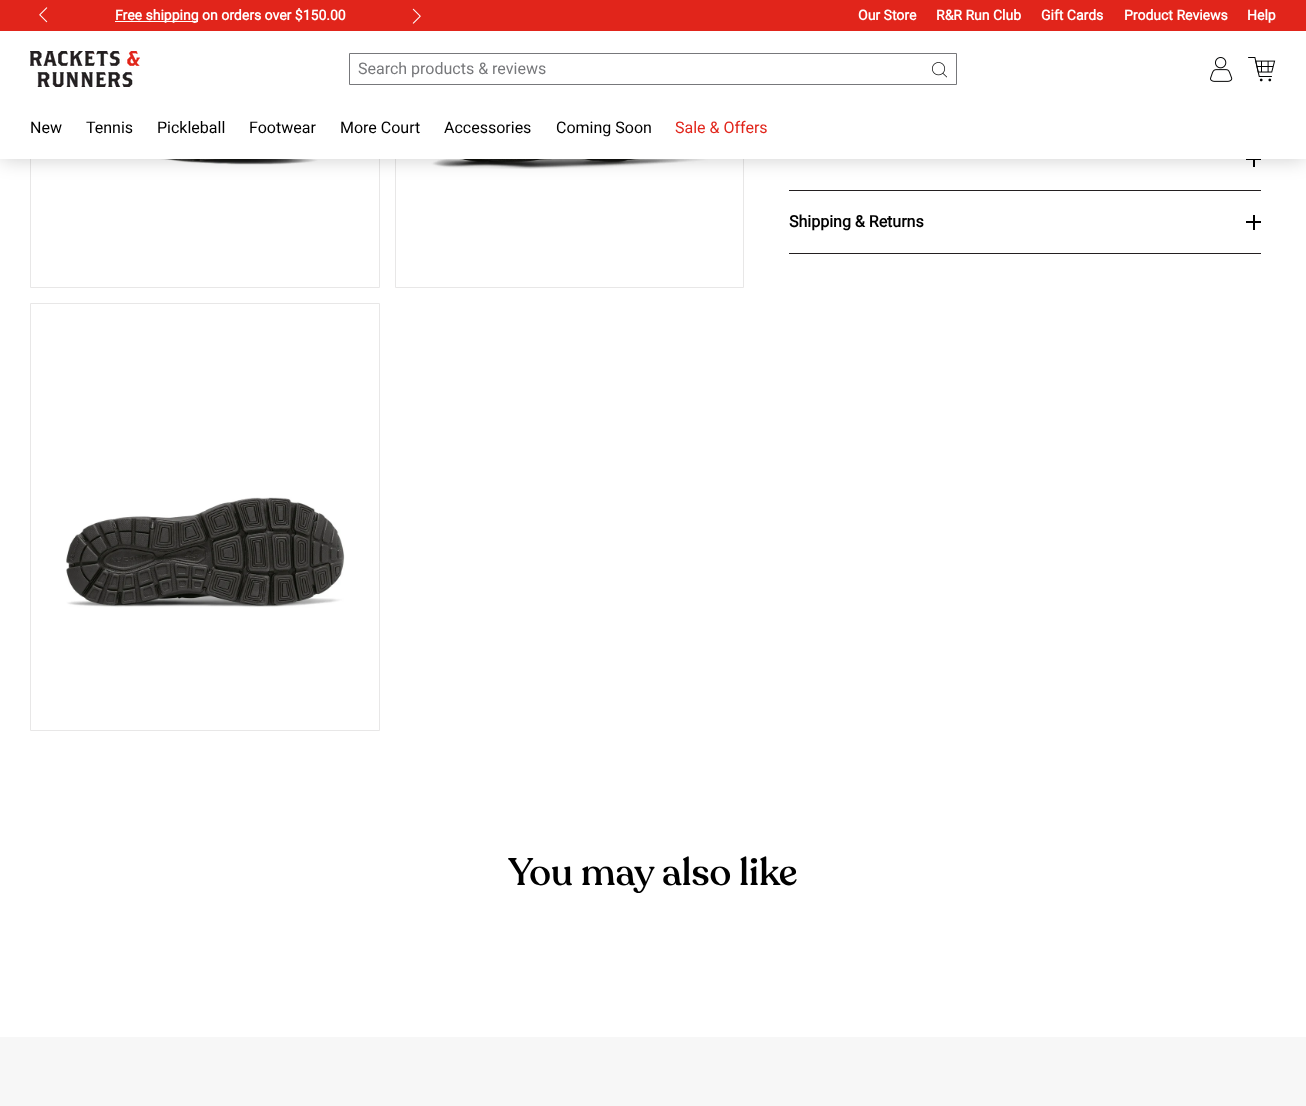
<svg xmlns="http://www.w3.org/2000/svg" width="1306" height="1106" viewBox="0 0 1306 1106">
  <rect width="100%" height="100%" fill="#fff"/>
  <path d="M30.5 -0.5h349v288H30.5z" fill="none" stroke="#e8e7e7"/>
  <image x="90" y="159" width="229" height="6" href="img/7.png"/>
  <path d="M395.5 -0.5h348v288H395.5z" fill="none" stroke="#e8e7e7"/>
  <image x="431" y="159" width="278" height="10" href="img/8.png"/>
  <path d="M1246 159h15v1H1246z" fill="#000"/>
  <path d="M1253 152h2v15H1253z" fill="#000"/>
  <path d="M1 2h1304v157H1z" fill="#00000033" filter="blur(10px)"/>
  <path d="M0 0h1306v31H0z" fill="#e1251b"/>
  <image x="39" y="7" width="9" height="16" href="img/1.png"/>
  <path d="M115 21h83v1H115z" fill="#fff"/>
  <image x="412" y="8" width="9" height="16" href="img/2.png"/>
  <path d="M0 31h1306v128H0z" fill="#fff"/>
  <image x="30" y="51" width="110" height="36" href="img/3.png"/>
  <path d="M349.5 53.5h607v31H349.5z" fill="none" stroke="#77787b"/>
  <image x="932" y="62" width="15" height="16" href="img/4.png"/>
  <image x="1210" y="57" width="23" height="25" href="img/5.png"/>
  <image x="1248" y="57" width="28" height="25" href="img/6.png"/>
  <path d="M30.5 303.5h349v427H30.5z" fill="none" stroke="#e8e7e7"/>
  <image x="66" y="497" width="279" height="111" href="img/9.png"/>
  <path d="M789 190h472v1H789z" fill="#231f20"/>
  <path d="M789 253h472v1H789z" fill="#231f20"/>
  <path d="M1246 221h15v2H1246z" fill="#000"/>
  <path d="M1253 215h2v15H1253z" fill="#000"/>
  <path d="M0 1037h1306v69H0z" fill="#f7f7f7"/>
  <g font-family="Roboto" font-size="14" font-weight="bold" fill="#fff">
    <text x="115" y="20">Free shipping on orders over $150.00</text>
    <text x="858" y="20">Our Store</text>
    <text x="936" y="20">R&amp;R Run Club</text>
    <text x="1041" y="20">Gift Cards</text>
    <text x="1124" y="20">Product Reviews</text>
    <text x="1247" y="20">Help</text>
  </g>
  <text x="358" y="74" font-family="Roboto" font-size="16" fill="#77787b">Search products &amp; reviews</text>
  <g font-family="Roboto" font-size="16" fill="#000">
    <text x="30" y="133">New</text>
    <text x="86" y="133">Tennis</text>
    <text x="157" y="133">Pickleball</text>
    <text x="249" y="133">Footwear</text>
    <text x="340" y="133">More Court</text>
    <text x="444" y="133">Accessories</text>
    <text x="556" y="133">Coming Soon</text>
  </g>
  <text x="675" y="133" font-family="Roboto" font-size="16" fill="#e1251b">Sale &amp; Offers</text>
  <text x="789" y="227" font-family="Roboto" font-size="16" font-weight="bold" fill="#000">Shipping &amp; Returns</text>
  <text x="508" y="885" font-family="'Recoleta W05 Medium'" font-size="38" font-weight="500" fill="#000">You may also like</text>
</svg>
